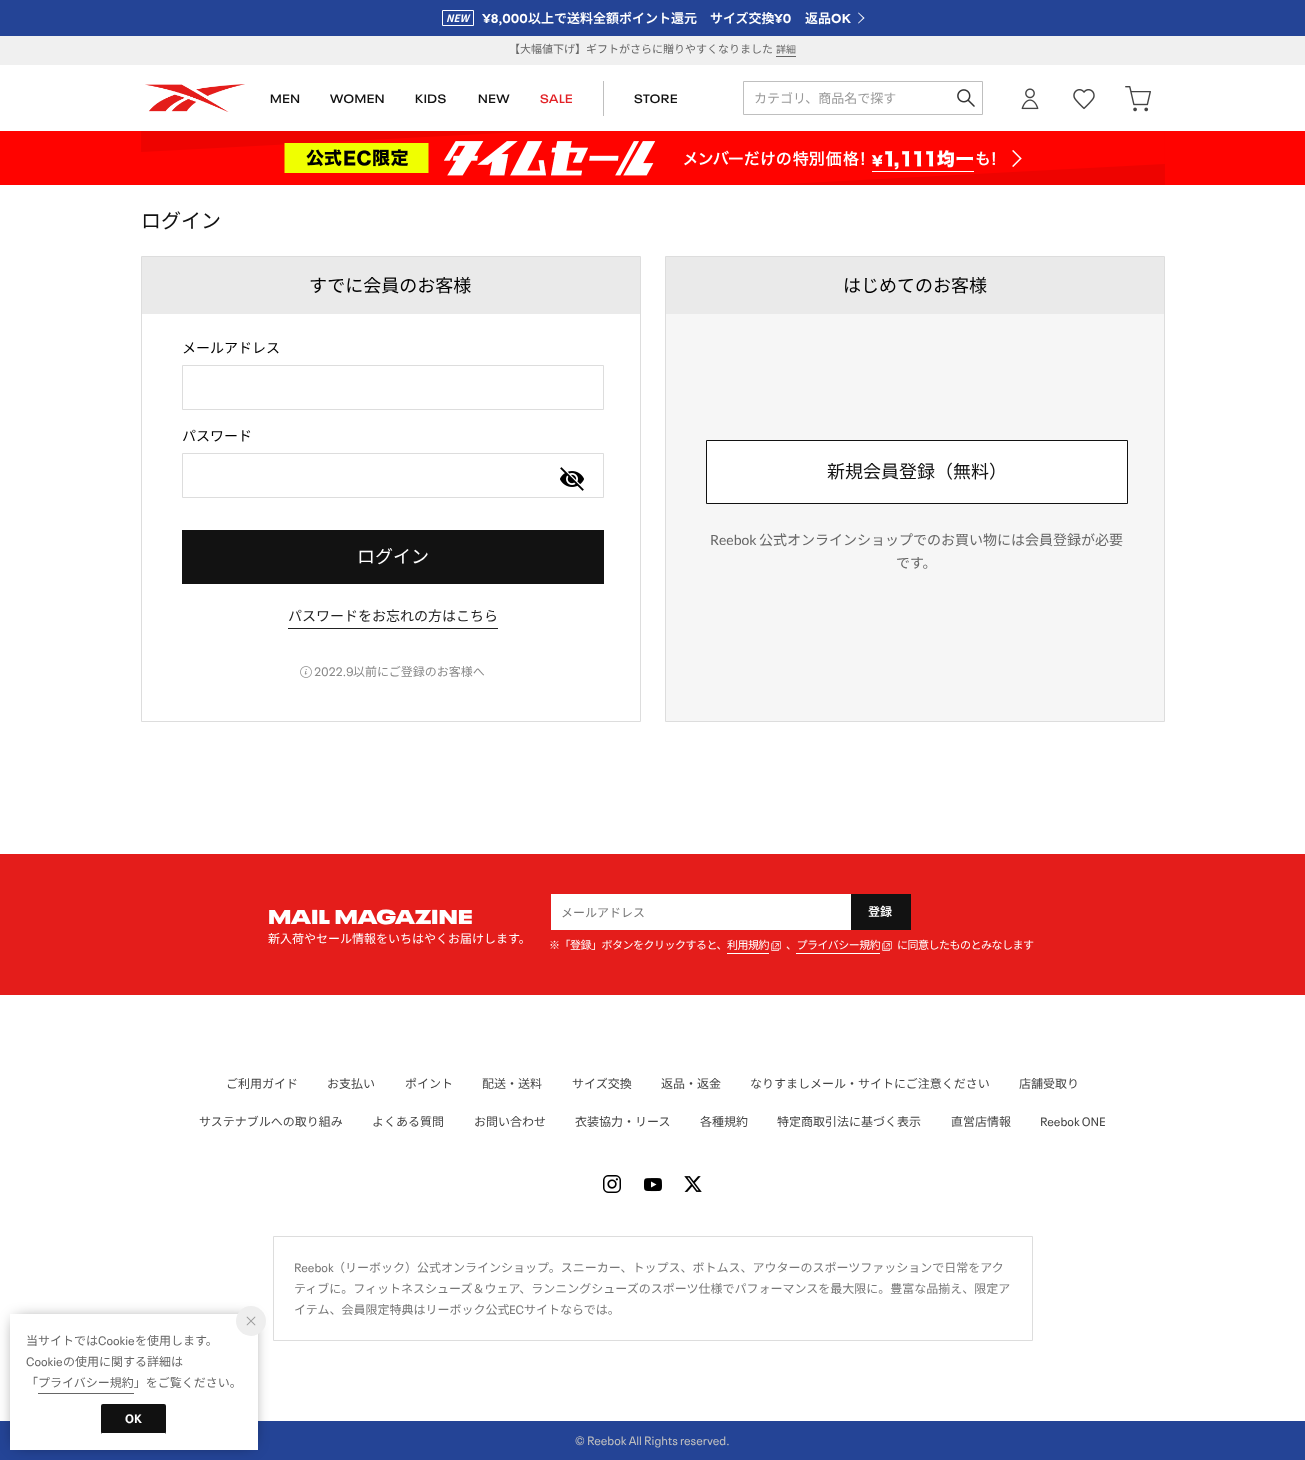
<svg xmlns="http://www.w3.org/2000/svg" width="1305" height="1460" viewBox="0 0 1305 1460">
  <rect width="100%" height="100%" fill="#fff"/>
  <path d="M0 0h1305v36H0z" fill="#244496"/>
  <path d="M442.5 10.5h31v15H442.5z" fill="none" stroke="#fff"/>
  <path d="M858.5 12.5L864.5 18L863.5 18.5L858 13Z" fill="#fff"/>
  <path d="M863.5 17.5L864.5 18L858.5 23.5L858 23Z" fill="#fff"/>
  <path d="M0 36h1305v29H0z" fill="#f0f0f0"/>
  <path d="M776 56h20v1H776z" fill="#666"/>
  <image x="145" y="84" width="100" height="28" href="img/1.png"/>
  <path d="M603 81h1v35H603z" fill="#bfbfbf"/>
  <path d="M743.5 81.5h239v33H743.5z" fill="none" stroke="#bfbfbf"/>
  <image x="957" y="89" width="18" height="18" href="img/2.png"/>
  <image x="1021" y="88" width="18" height="22" href="img/3.png"/>
  <image x="1073" y="89" width="22" height="21" href="img/4.png"/>
  <image x="1125" y="86" width="26" height="26" href="img/5.png"/>
  <path d="M0 131h1305v54H0z" fill="#ff0300"/>
  <image x="141" y="131" width="1024" height="54" href="img/6.png"/>
  <path d="M141.5 256.5h499v465H141.5z" fill="none" stroke="#ddd"/>
  <path d="M142 257h498v57H142z" fill="#eaeaea"/>
  <path d="M182.5 365.5h421v44H182.5z" fill="none" stroke="#ddd"/>
  <path d="M182.5 453.5h421v44H182.5z" fill="none" stroke="#ddd"/>
  <image x="560" y="467" width="24" height="24" href="img/7.png"/>
  <path d="M182 530h422v54H182z" fill="#121212"/>
  <path d="M288 628h210v1H288z" fill="#222"/>
  <image x="300" y="666" width="12" height="12" href="img/8.png"/>
  <path d="M665.5 256.5h499v465H665.5z" fill="none" stroke="#ddd"/>
  <path d="M666 257h498v57H666z" fill="#eaeaea"/>
  <path d="M666 314h498v407H666z" fill="#f6f6f6"/>
  <path d="M706.5 440.5h421v63H706.5z" fill="#fff" stroke="#121212"/>
  <path d="M0 854h1305v141H0z" fill="#e41d1b"/>
  <path d="M551 894h300v36H551z" fill="#fff"/>
  <path d="M851 894h60v36H851z" fill="#121212"/>
  <image x="771" y="941" width="10" height="10" href="img/9.png"/>
  <image x="882" y="941" width="10" height="10" href="img/9.png"/>
  <path d="M727 953h42v1H727z" fill="#fff"/>
  <path d="M796 953h84v1H796z" fill="#fff"/>
  <image x="603" y="1175" width="18" height="18" href="img/10.png"/>
  <image x="644" y="1178" width="18" height="14" href="img/11.png"/>
  <image x="684" y="1176" width="18" height="16" href="img/12.png"/>
  <path d="M273.5 1236.5h759v104H273.5z" fill="none" stroke="#ddd"/>
  <path d="M0 1421h1305v39H0z" fill="#244496"/>
  <path d="M16 1320h236v124H16z" fill="#00000099" filter="blur(8px)"/>
  <path d="M10 1314h248v136H10z" fill="#fff"/>
  <circle cx="251" cy="1321" r="15" fill="#eee"/>
  <image x="246" y="1316" width="10" height="10" href="img/13.png"/>
  <path d="M38 1393h96v1H38z" fill="#666"/>
  <rect x="101" y="1404" width="65" height="30" rx="2" fill="#111"/>
  <path d="M102 1433h63v1H102z" fill="#fff"/>
  <text x="446" y="22" font-family="Noto Sans JP" font-size="10" font-weight="bold" font-style="italic" fill="#fff">NEW</text>
  <text x="482" y="23" font-family="Lexend" font-size="13" font-weight="600" fill="#fff">¥8,000</text>
  <text x="528" y="23" font-family="Noto Sans JP" font-size="13" font-weight="600" fill="#fff">以上で送料全額ポイント還元　サイズ交換</text>
  <text x="774" y="23" font-family="Lexend" font-size="13" font-weight="600" fill="#fff">¥0</text>
  <text x="805" y="23" font-family="Noto Sans JP" font-size="13" font-weight="600" fill="#fff">返品</text>
  <text x="831" y="23" font-family="Lexend" font-size="13" font-weight="600" fill="#fff">OK</text>
  <text x="509" y="53" font-family="Noto Sans JP" font-size="11" fill="#666">【大幅値下げ】ギフトがさらに贈りやすくなりました</text>
  <text x="776" y="53" font-family="Noto Sans JP" font-size="10" fill="#666">詳細</text>
  <g font-family="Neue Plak" font-size="12" font-weight="600" letter-spacing="0.5" fill="#121212">
    <text x="270" y="103">MEN</text>
    <text x="330" y="103">WOMEN</text>
    <text x="415" y="103">KIDS</text>
    <text x="478" y="103">NEW</text>
  </g>
  <text x="540" y="103" font-family="Neue Plak" font-size="12" font-weight="600" letter-spacing="0.5" fill="#e22126">SALE</text>
  <text x="634" y="103" font-family="Neue Plak" font-size="12" font-weight="600" letter-spacing="0.5" fill="#121212">STORE</text>
  <text x="754" y="103" font-family="Noto Sans JP" font-size="13" fill="#999">カテゴリ、商品名で探す</text>
  <text x="141" y="228" font-family="Noto Sans JP" font-size="20" fill="#121212">ログイン</text>
  <text x="309" y="292" font-family="Noto Sans JP" font-size="18" fill="#000">すでに会員のお客様</text>
  <g font-family="Noto Sans JP" font-size="14" fill="#000">
    <text x="182" y="353">メールアドレス</text>
    <text x="182" y="441">パスワード</text>
  </g>
  <text x="357" y="563" font-family="Noto Sans JP" font-size="18" fill="#fff">ログイン</text>
  <text x="288" y="621" font-family="Noto Sans JP" font-size="14" fill="#222">パスワードをお忘れの方はこちら</text>
  <text x="314" y="676" font-family="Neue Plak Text" font-size="12" fill="#888">2022.9</text>
  <text x="353" y="676" font-family="Noto Sans JP" font-size="12" fill="#888">以前にご登録のお客様へ</text>
  <text x="843" y="292" font-family="Noto Sans JP" font-size="18" fill="#000">はじめてのお客様</text>
  <text x="827" y="478" font-family="Noto Sans JP" font-size="18" fill="#121212">新規会員登録（無料）</text>
  <text x="710" y="545" font-family="Lato" font-size="14" fill="#666">Reebok</text>
  <g font-family="Noto Sans JP" font-size="14" fill="#666">
    <text x="759" y="545">公式オンラインショップでのお買い物には会員登録が必要</text>
    <text x="896" y="568">です。</text>
  </g>
  <text x="268" y="924" font-family="Neue Plak" font-size="20" font-weight="800" fill="#fff">MAIL MAGAZINE</text>
  <text x="268" y="943" font-family="Noto Sans JP" font-size="12" fill="#fff">新入荷やセール情報をいちはやくお届けします。</text>
  <text x="561" y="917" font-family="Noto Sans JP" font-size="12" fill="#777">メールアドレス</text>
  <text x="868" y="916" font-family="Noto Sans JP" font-size="12" font-weight="600" fill="#fff">登録</text>
  <g font-family="Noto Sans JP" font-size="11" letter-spacing="-0.5" fill="#fff">
    <text x="549" y="949">※「登録」ボタンをクリックすると、利用規約</text>
    <text x="786" y="949">、プライバシー規約</text>
    <text x="897" y="949">に同意したものとみなします</text>
  </g>
  <g font-family="Noto Sans JP" font-size="12" fill="#444">
    <text x="226" y="1088">ご利用ガイド</text>
    <text x="327" y="1088">お支払い</text>
    <text x="405" y="1088">ポイント</text>
    <text x="482" y="1088">配送・送料</text>
    <text x="572" y="1088">サイズ交換</text>
    <text x="661" y="1088">返品・返金</text>
    <text x="750" y="1088">なりすましメール・サイトにご注意ください</text>
    <text x="1019" y="1088">店舗受取り</text>
    <text x="199" y="1126">サステナブルへの取り組み</text>
    <text x="372" y="1126">よくある質問</text>
    <text x="474" y="1126">お問い合わせ</text>
    <text x="575" y="1126">衣装協力・リース</text>
    <text x="700" y="1126">各種規約</text>
    <text x="777" y="1126">特定商取引法に基づく表示</text>
    <text x="951" y="1126">直営店情報</text>
  </g>
  <text x="1040" y="1126" font-family="Neue Plak Text" font-size="12" fill="#444">Reebok ONE</text>
  <text x="294" y="1272" font-family="Neue Plak Text" font-size="12" fill="#777">Reebok</text>
  <g font-family="Noto Sans JP" font-size="12" fill="#777">
    <text x="333" y="1272">（リーボック）公式オンラインショップ。スニーカー、トップス、ボトムス、アウターのスポーツファッションで日常をアク</text>
    <text x="294" y="1293">ティブに。フィットネスシューズ＆ウェア、ランニングシューズのスポーツ仕様でパフォーマンスを最大限に。豊富な品揃え、限定ア</text>
    <text x="294" y="1314">イテム、会員限定特典はリーボック公式</text>
  </g>
  <text x="509" y="1314" font-family="Neue Plak Text" font-size="12" fill="#777">EC</text>
  <text x="524" y="1314" font-family="Noto Sans JP" font-size="12" fill="#777">サイトならでは。</text>
  <text x="26" y="1345" font-family="Noto Sans JP" font-size="12" fill="#666">当サイトでは</text>
  <text x="98" y="1345" font-family="Neue Plak Text" font-size="12" fill="#666">Cookie</text>
  <text x="135" y="1345" font-family="Noto Sans JP" font-size="12" fill="#666">を使用します。</text>
  <text x="26" y="1366" font-family="Neue Plak Text" font-size="12" fill="#666">Cookie</text>
  <g font-family="Noto Sans JP" font-size="12" fill="#666">
    <text x="63" y="1366">の使用に関する詳細は</text>
    <text x="26" y="1387">「プライバシー規約」をご覧ください。</text>
  </g>
  <text x="125" y="1423" font-family="Neue Plak Text" font-size="12" font-weight="bold" fill="#fff">OK</text>
  <text x="575" y="1445" font-family="Neue Plak Text" font-size="12" fill="#bfbfbf">© Reebok All Rights reserved.</text>
</svg>
